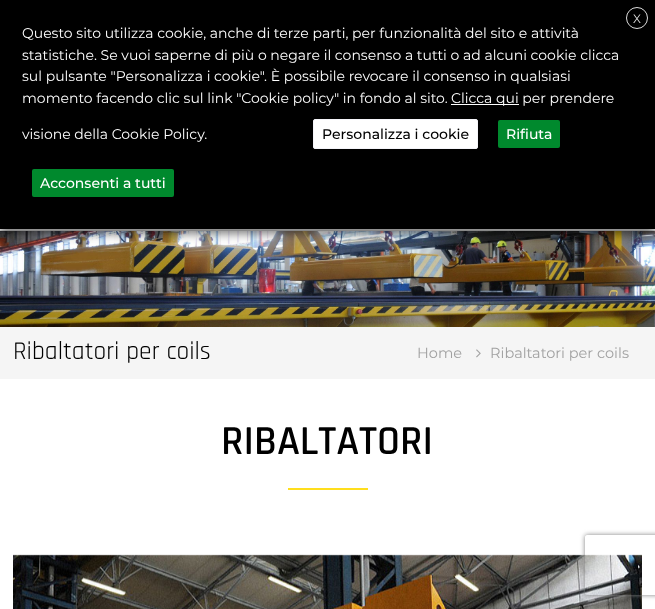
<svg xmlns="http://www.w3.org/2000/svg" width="655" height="609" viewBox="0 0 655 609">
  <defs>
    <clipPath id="clip1"><path d="M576 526H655V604H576ZM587 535H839C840 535 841 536 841 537V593C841 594 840 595 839 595H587C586 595 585 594 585 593V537C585 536 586 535 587 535Z" clip-rule="evenodd"/></clipPath>
  </defs>
  <rect width="100%" height="100%" fill="#fff"/>
  <path d="M0 229h655v1H0z" fill="#fafafa"/>
  <path d="M0 230h655v1H0z" fill="#ddd"/>
  <image x="0" y="231" width="655" height="96" href="img/1.png"/>
  <path d="M0 5h655v229H0z" fill="#00000080" filter="blur(5px)"/>
  <path d="M0 0h655v229H0z" fill="#000"/>
  <circle cx="637" cy="18" r="10.5" fill="none" stroke="#ddd"/>
  <path d="M451 104h68v1H451z" fill="#fff"/>
  <rect x="313.5" y="119.5" width="164" height="29" rx="1.5" fill="#fff" stroke="#f4f4f9"/>
  <rect x="498" y="120" width="62" height="28" rx="2" fill="#00892d"/>
  <rect x="32" y="169" width="142" height="28" rx="2" fill="#00892d"/>
  <path d="M0 327h655v52H0z" fill="#f5f5f5"/>
  <image x="476" y="349" width="5" height="9" href="img/2.png"/>
  <path d="M288 488h80v2H288z" fill="#ffde1d"/>
  <image x="13" y="554" width="629" height="55" href="img/3.png"/>
  <g clip-path="url(#clip1)">
    <rect x="585" y="535" width="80" height="60" rx="2" fill="#808080" filter="blur(2.5px)"/>
  </g>
  <text x="633" y="23" font-family="Montserrat" font-size="12" fill="#ddd">X</text>
  <g font-family="Montserrat" font-size="14" fill="#fff">
    <text x="22" y="38">Questo sito utilizza cookie, anche di terze parti, per funzionalità del sito e attività</text>
    <text x="22" y="60">statistiche. Se vuoi saperne di più o negare il consenso a tutti o ad alcuni cookie clicca</text>
    <text x="22" y="81">sul pulsante "Personalizza i cookie". È possibile revocare il consenso in qualsiasi</text>
    <text x="22" y="103">momento facendo clic sul link "Cookie policy" in fondo al sito.</text>
    <text x="451" y="103">Clicca qui per prendere</text>
    <text x="22" y="139">visione della Cookie Policy.</text>
  </g>
  <text x="322" y="139" font-family="Montserrat" font-size="14" font-weight="100" fill="#000">Personalizza i cookie</text>
  <g font-family="Montserrat" font-size="14" font-weight="100" fill="#fff">
    <text x="506" y="139">Rifiuta</text>
    <text x="40" y="188">Acconsenti a tutti</text>
  </g>
  <text x="13" y="359" font-family="Rajdhani" font-size="25.5" fill="#000">Ribaltatori per coils</text>
  <g font-family="Montserrat" font-size="14.5" fill="#a1a1a1">
    <text x="417" y="358">Home</text>
    <text x="490" y="358">Ribaltatori per coils</text>
  </g>
  <text x="221" y="454" font-family="Rajdhani" font-size="41.5" font-weight="600" fill="#000">RIBALTATORI</text>
</svg>
